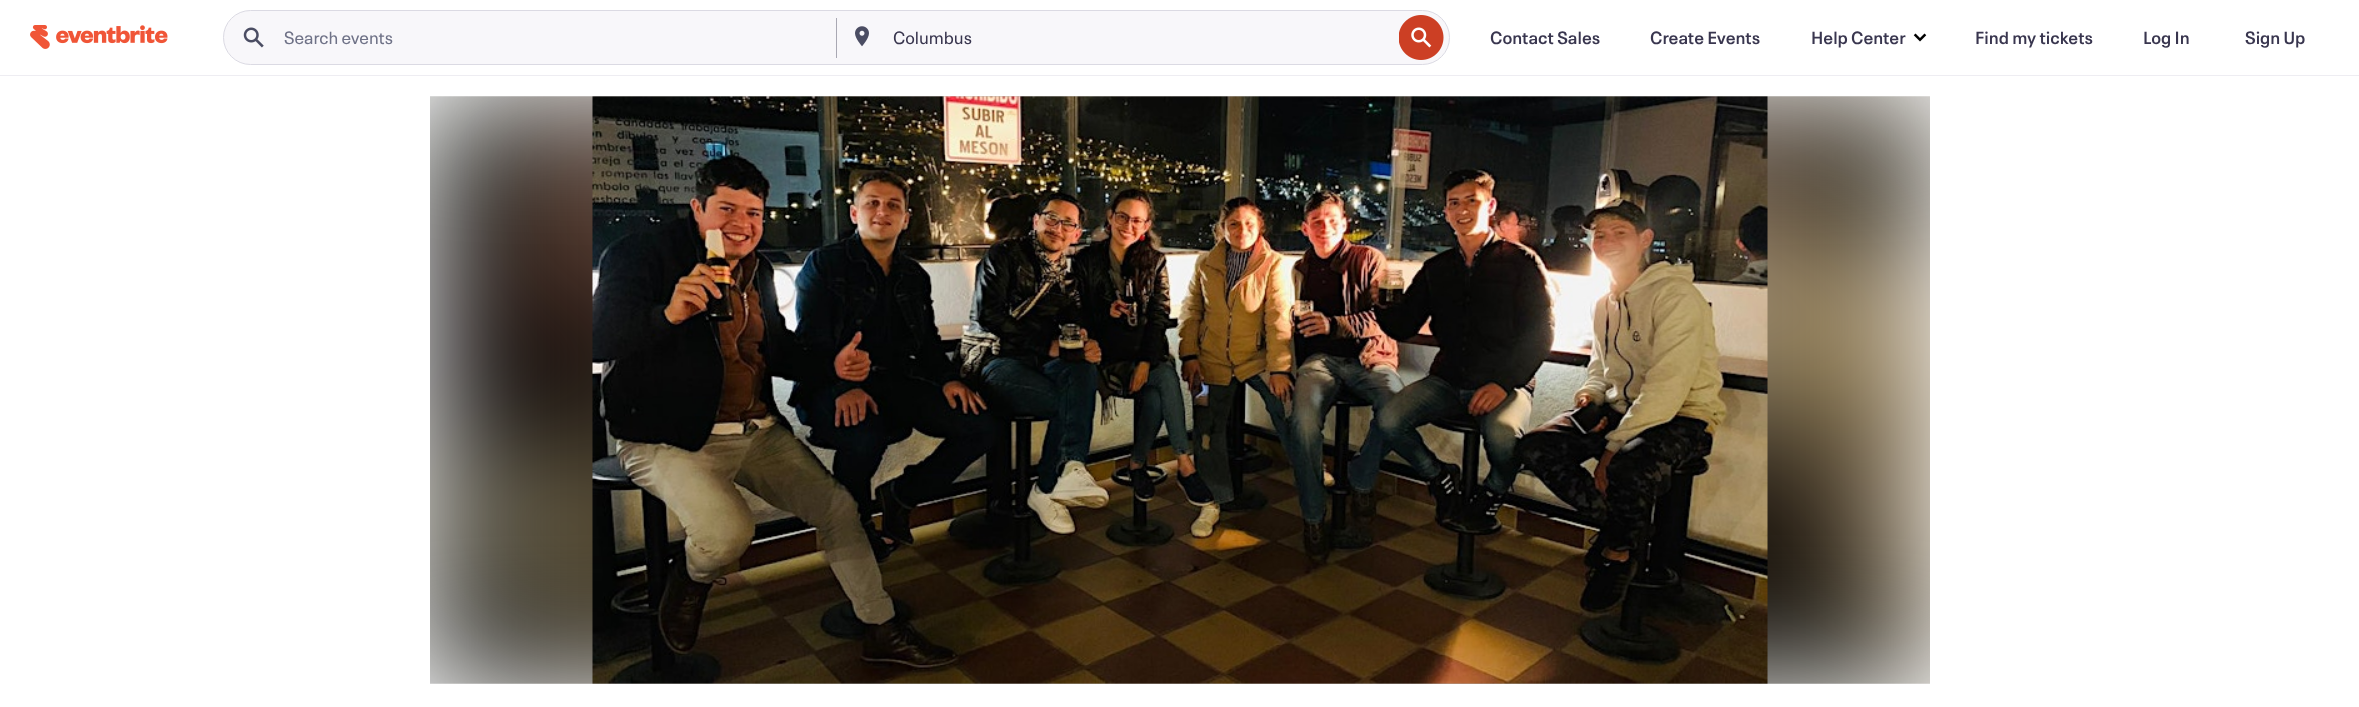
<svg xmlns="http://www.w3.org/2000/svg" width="2359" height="707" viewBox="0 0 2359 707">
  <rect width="100%" height="100%" fill="#fff"/>
  <path d="M0 75h2359v1H0z" fill="#eeedf2"/>
  <image x="30" y="25" width="138" height="24" href="img/1.png"/>
  <rect x="223.5" y="10.5" width="1226" height="54" rx="27" fill="#f8f7fa" stroke="#dbdae3"/>
  <image x="243" y="27" width="21" height="21" href="img/2.png"/>
  <path d="M836 18h1v40H836z" fill="#a9a8b3"/>
  <image x="855" y="26" width="14" height="21" href="img/3.png"/>
  <image x="1399" y="15" width="45" height="45" href="img/4.png"/>
  <image x="1913" y="33" width="14" height="9" href="img/5.png"/>
  <image x="430" y="96" width="1500" height="588" href="img/6.png"/>
  <image x="592" y="96" width="1176" height="588" href="img/7.png"/>
  <text x="284" y="44" font-family="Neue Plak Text" font-size="17.5" fill="#6f7287">Search events</text>
  <text x="893" y="44" font-family="Neue Plak Text" font-size="17.5" fill="#39364f">Columbus</text>
  <g font-family="Neue Plak Text" font-size="17.5" font-weight="600" fill="#39364f">
    <text x="1490" y="44">Contact Sales</text>
    <text x="1650" y="44">Create Events</text>
    <text x="1811" y="44">Help Center</text>
    <text x="1975" y="44">Find my tickets</text>
    <text x="2143" y="44">Log In</text>
    <text x="2245" y="44">Sign Up</text>
  </g>
</svg>
